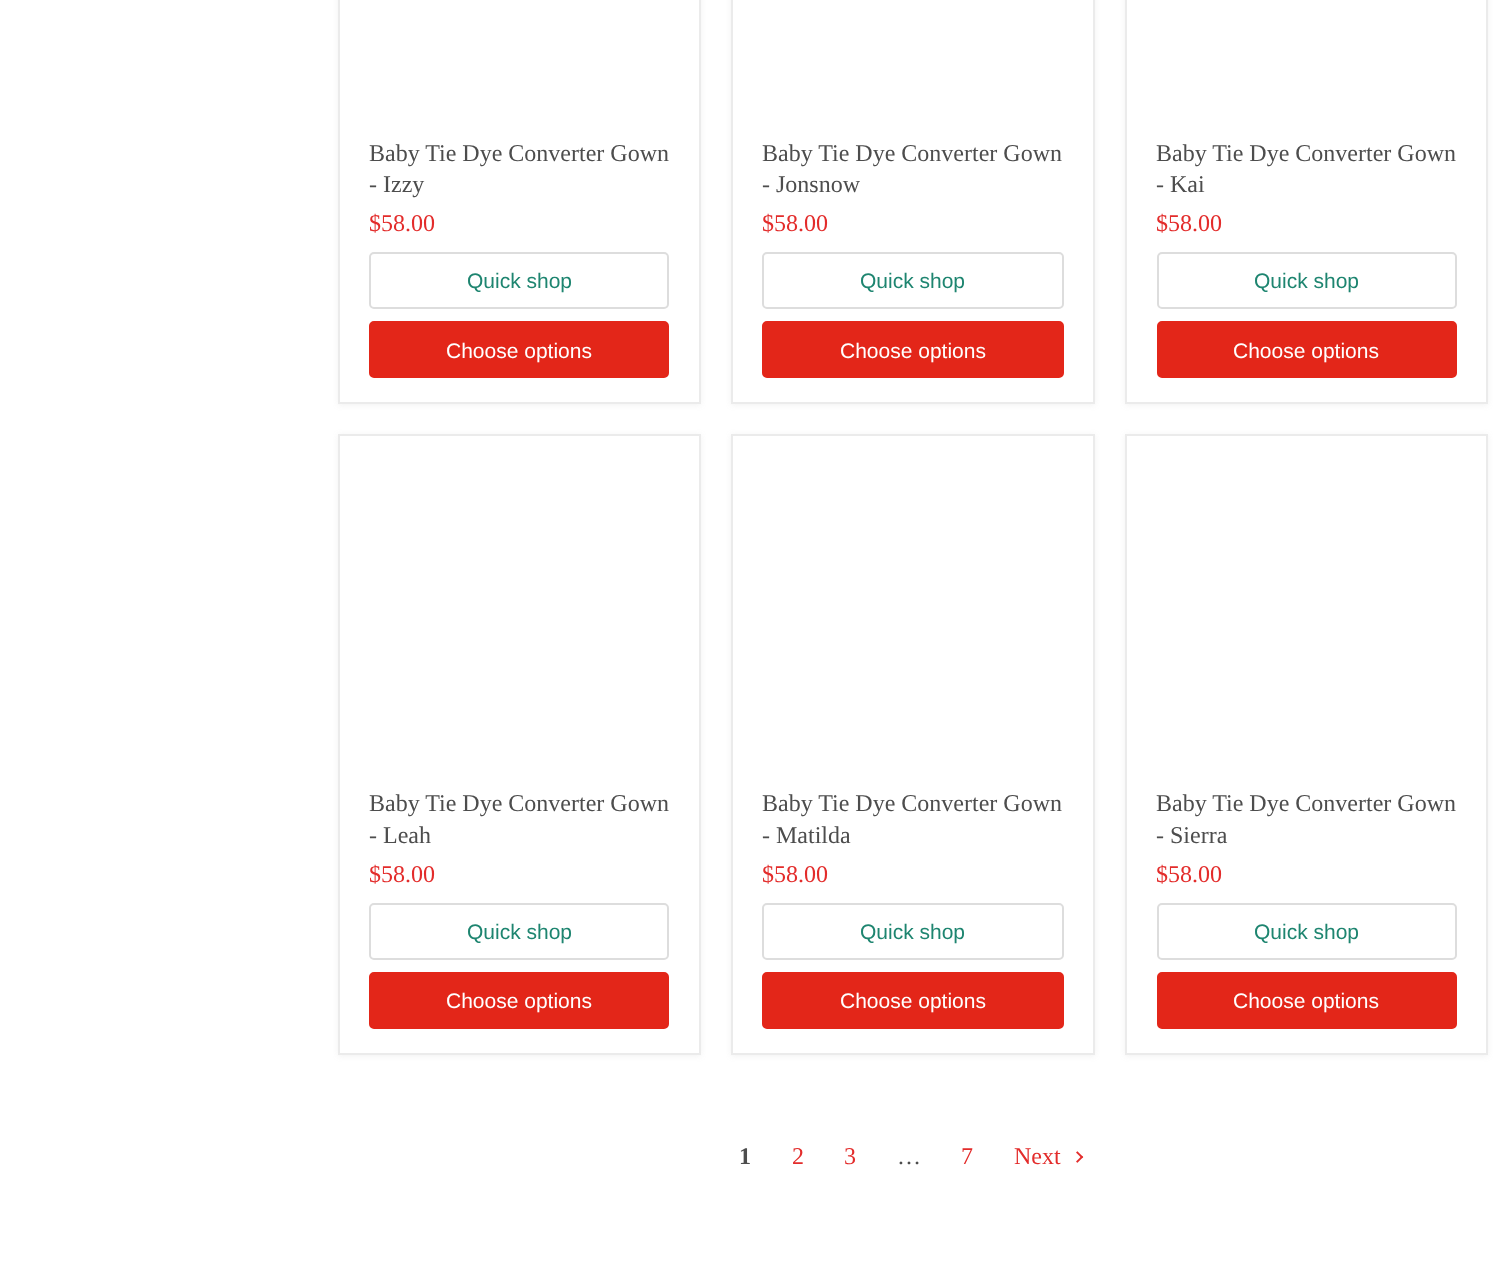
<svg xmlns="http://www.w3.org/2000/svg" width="1510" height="1275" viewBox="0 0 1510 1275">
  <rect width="100%" height="100%" fill="#fff"/>
  <path d="M338 -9h363v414H338z" fill="#8080801c" filter="blur(3px)"/>
  <path d="M339 -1h361v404H339z" fill="#fff" stroke="#ebebeb" stroke-width="2"/>
  <rect x="370" y="253" width="298" height="55" rx="4" fill="none" stroke="#ddd" stroke-width="2"/>
  <rect x="370" y="322" width="298" height="55" rx="4" fill="#e32619" stroke="#e32619" stroke-width="2"/>
  <path d="M731 -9h364v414H731z" fill="#8080801c" filter="blur(3px)"/>
  <path d="M732 -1h362v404H732z" fill="#fff" stroke="#ebebeb" stroke-width="2"/>
  <rect x="763" y="253" width="300" height="55" rx="4" fill="none" stroke="#ddd" stroke-width="2"/>
  <rect x="763" y="322" width="300" height="55" rx="4" fill="#e32619" stroke="#e32619" stroke-width="2"/>
  <path d="M1125 -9h363v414H1125z" fill="#8080801c" filter="blur(3px)"/>
  <path d="M1126 -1h361v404H1126z" fill="#fff" stroke="#ebebeb" stroke-width="2"/>
  <rect x="1158" y="253" width="298" height="55" rx="4" fill="none" stroke="#ddd" stroke-width="2"/>
  <rect x="1158" y="322" width="298" height="55" rx="4" fill="#e32619" stroke="#e32619" stroke-width="2"/>
  <path d="M338 435h363v621H338z" fill="#8080801c" filter="blur(3px)"/>
  <path d="M339 435h361v619H339z" fill="#fff" stroke="#ebebeb" stroke-width="2"/>
  <rect x="370" y="904" width="298" height="55" rx="4" fill="none" stroke="#ddd" stroke-width="2"/>
  <rect x="370" y="973" width="298" height="55" rx="4" fill="#e32619" stroke="#e32619" stroke-width="2"/>
  <path d="M731 435h364v621H731z" fill="#8080801c" filter="blur(3px)"/>
  <path d="M732 435h362v619H732z" fill="#fff" stroke="#ebebeb" stroke-width="2"/>
  <rect x="763" y="904" width="300" height="55" rx="4" fill="none" stroke="#ddd" stroke-width="2"/>
  <rect x="763" y="973" width="300" height="55" rx="4" fill="#e32619" stroke="#e32619" stroke-width="2"/>
  <path d="M1125 435h363v621H1125z" fill="#8080801c" filter="blur(3px)"/>
  <path d="M1126 435h361v619H1126z" fill="#fff" stroke="#ebebeb" stroke-width="2"/>
  <rect x="1158" y="904" width="298" height="55" rx="4" fill="none" stroke="#ddd" stroke-width="2"/>
  <rect x="1158" y="973" width="298" height="55" rx="4" fill="#e32619" stroke="#e32619" stroke-width="2"/>
  <image x="1076" y="1151" width="8" height="12" href="img/1.png"/>
  <g font-family="Liberation Serif" font-size="24" fill="#4d4d4d">
    <text x="369" y="161">Baby Tie Dye Converter Gown</text>
    <text x="369" y="192">- Izzy</text>
  </g>
  <text x="369" y="231" font-family="Liberation Serif" font-size="24" fill="#e32c2b">$58.00</text>
  <text x="467" y="288" font-family="Liberation Sans" font-size="21" fill="#1e8570">Quick shop</text>
  <text x="446" y="358" font-family="Liberation Sans" font-size="21" fill="#fff">Choose options</text>
  <g font-family="Liberation Serif" font-size="24" fill="#4d4d4d">
    <text x="762" y="161">Baby Tie Dye Converter Gown</text>
    <text x="762" y="192">- Jonsnow</text>
  </g>
  <text x="762" y="231" font-family="Liberation Serif" font-size="24" fill="#e32c2b">$58.00</text>
  <text x="860" y="288" font-family="Liberation Sans" font-size="21" fill="#1e8570">Quick shop</text>
  <text x="840" y="358" font-family="Liberation Sans" font-size="21" fill="#fff">Choose options</text>
  <g font-family="Liberation Serif" font-size="24" fill="#4d4d4d">
    <text x="1156" y="161">Baby Tie Dye Converter Gown</text>
    <text x="1156" y="192">- Kai</text>
  </g>
  <text x="1156" y="231" font-family="Liberation Serif" font-size="24" fill="#e32c2b">$58.00</text>
  <text x="1254" y="288" font-family="Liberation Sans" font-size="21" fill="#1e8570">Quick shop</text>
  <text x="1233" y="358" font-family="Liberation Sans" font-size="21" fill="#fff">Choose options</text>
  <g font-family="Liberation Serif" font-size="24" fill="#4d4d4d">
    <text x="369" y="811">Baby Tie Dye Converter Gown</text>
    <text x="369" y="843">- Leah</text>
  </g>
  <text x="369" y="882" font-family="Liberation Serif" font-size="24" fill="#e32c2b">$58.00</text>
  <text x="467" y="939" font-family="Liberation Sans" font-size="21" fill="#1e8570">Quick shop</text>
  <text x="446" y="1008" font-family="Liberation Sans" font-size="21" fill="#fff">Choose options</text>
  <g font-family="Liberation Serif" font-size="24" fill="#4d4d4d">
    <text x="762" y="811">Baby Tie Dye Converter Gown</text>
    <text x="762" y="843">- Matilda</text>
  </g>
  <text x="762" y="882" font-family="Liberation Serif" font-size="24" fill="#e32c2b">$58.00</text>
  <text x="860" y="939" font-family="Liberation Sans" font-size="21" fill="#1e8570">Quick shop</text>
  <text x="840" y="1008" font-family="Liberation Sans" font-size="21" fill="#fff">Choose options</text>
  <g font-family="Liberation Serif" font-size="24" fill="#4d4d4d">
    <text x="1156" y="811">Baby Tie Dye Converter Gown</text>
    <text x="1156" y="843">- Sierra</text>
  </g>
  <text x="1156" y="882" font-family="Liberation Serif" font-size="24" fill="#e32c2b">$58.00</text>
  <text x="1254" y="939" font-family="Liberation Sans" font-size="21" fill="#1e8570">Quick shop</text>
  <text x="1233" y="1008" font-family="Liberation Sans" font-size="21" fill="#fff">Choose options</text>
  <text x="739" y="1164" font-family="Liberation Serif" font-size="24" font-weight="bold" fill="#4d4d4d">1</text>
  <g font-family="Liberation Serif" font-size="24" fill="#e32c2b">
    <text x="792" y="1164">2</text>
    <text x="844" y="1164">3</text>
  </g>
  <text x="897" y="1164" font-family="Liberation Serif" font-size="24" fill="#4d4d4d">…</text>
  <g font-family="Liberation Serif" font-size="24" fill="#e32c2b">
    <text x="961" y="1164">7</text>
    <text x="1014" y="1164">Next</text>
  </g>
</svg>
